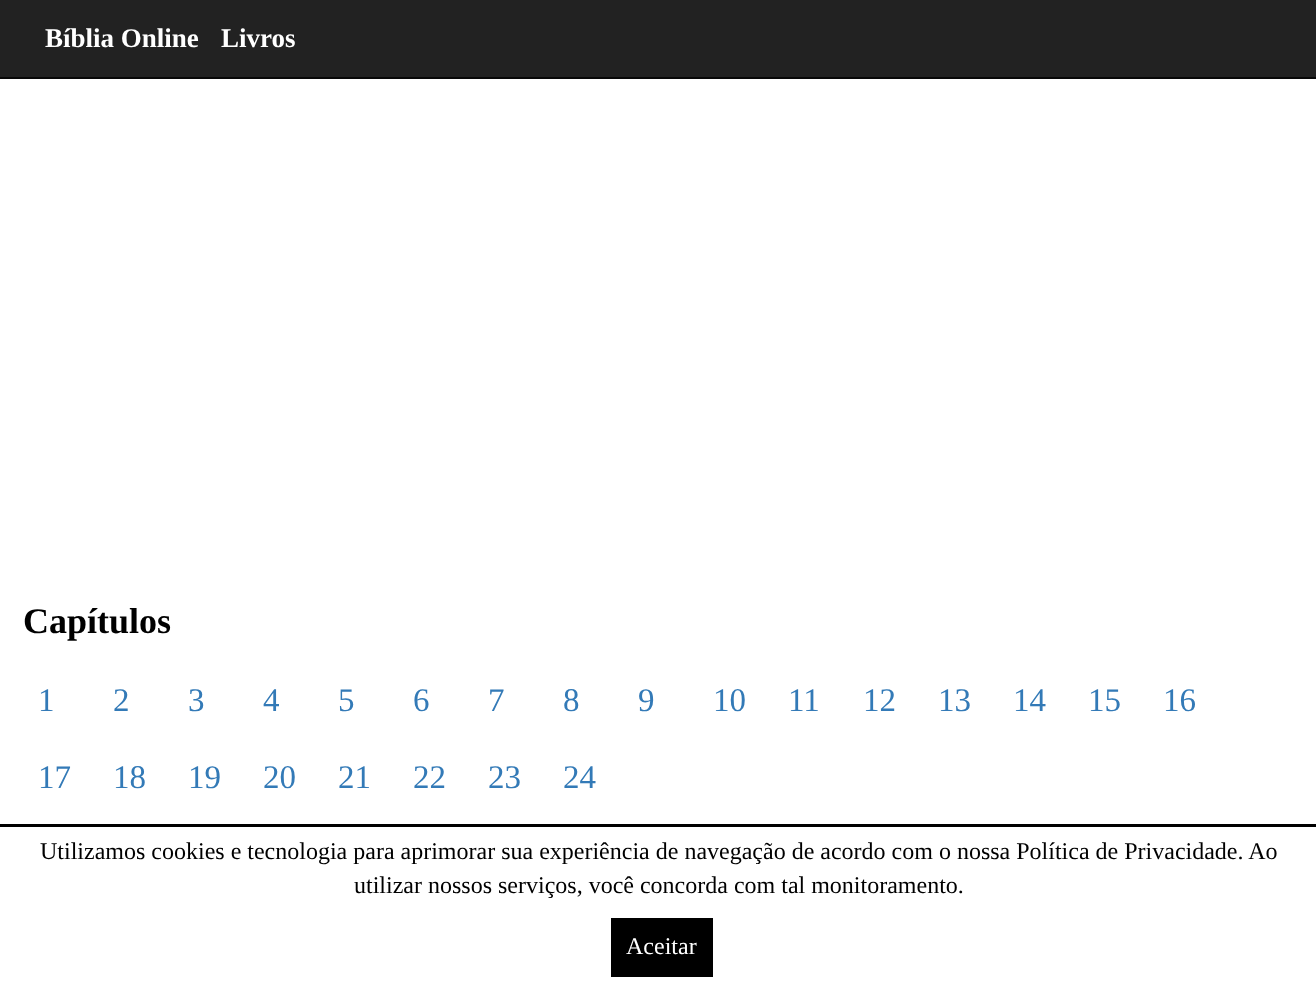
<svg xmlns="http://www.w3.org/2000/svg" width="1316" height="983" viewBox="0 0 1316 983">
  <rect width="100%" height="100%" fill="#fff"/>
  <path d="M0 0h1316v77H0z" fill="#222"/>
  <path d="M0 77h1316v2H0z" fill="#080808"/>
  <path d="M0 824h1316v3H0z" fill="#000"/>
  <path d="M611 918h102v59H611z" fill="#000"/>
  <g font-family="Liberation Serif" font-size="27" font-weight="bold" fill="#fff">
    <text x="45" y="47">Bíblia Online</text>
    <text x="221" y="47">Livros</text>
  </g>
  <text x="23" y="633" font-family="Liberation Serif" font-size="36" font-weight="bold" fill="#000">Capítulos</text>
  <g font-family="Liberation Serif" font-size="33" fill="#337ab7">
    <text x="38" y="711">1</text>
    <text x="113" y="711">2</text>
    <text x="188" y="711">3</text>
    <text x="263" y="711">4</text>
    <text x="338" y="711">5</text>
    <text x="413" y="711">6</text>
    <text x="488" y="711">7</text>
    <text x="563" y="711">8</text>
    <text x="638" y="711">9</text>
    <text x="713" y="711">10</text>
    <text x="788" y="711">11</text>
    <text x="863" y="711">12</text>
    <text x="938" y="711">13</text>
    <text x="1013" y="711">14</text>
    <text x="1088" y="711">15</text>
    <text x="1163" y="711">16</text>
    <text x="38" y="788">17</text>
    <text x="113" y="788">18</text>
    <text x="188" y="788">19</text>
    <text x="263" y="788">20</text>
    <text x="338" y="788">21</text>
    <text x="413" y="788">22</text>
    <text x="488" y="788">23</text>
    <text x="563" y="788">24</text>
  </g>
  <g font-family="Liberation Serif" font-size="24" fill="#000">
    <text x="40" y="859">Utilizamos cookies e tecnologia para aprimorar sua experiência de navegação de acordo com o nossa Política de Privacidade. Ao</text>
    <text x="354" y="893">utilizar nossos serviços, você concorda com tal monitoramento.</text>
  </g>
  <text x="626" y="954" font-family="Liberation Serif" font-size="24" fill="#fff">Aceitar</text>
</svg>
